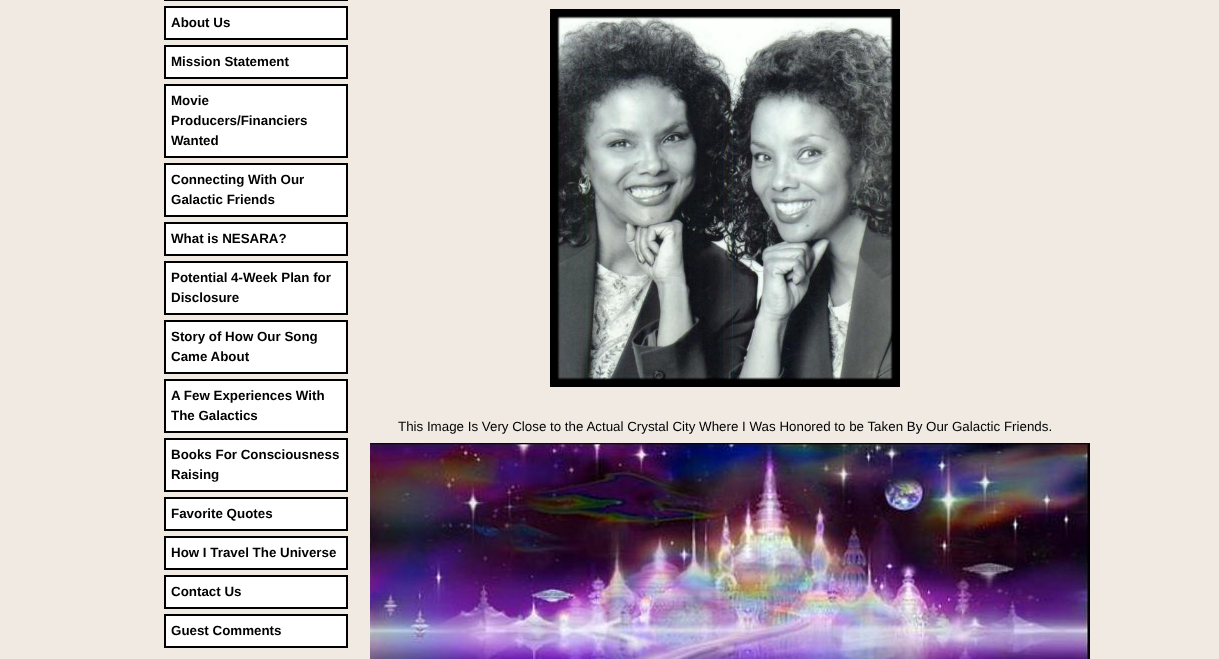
<svg xmlns="http://www.w3.org/2000/svg" width="1219" height="659" viewBox="0 0 1219 659">
  <rect width="100%" height="100%" fill="#f0eae3"/>
  <path d="M165 -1h182v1H165z" fill="none" stroke="#000" stroke-width="2"/>
  <path d="M165 7h182v32H165z" fill="#fff" stroke="#000" stroke-width="2"/>
  <path d="M165 46h182v32H165z" fill="#fff" stroke="#000" stroke-width="2"/>
  <path d="M165 85h182v72H165z" fill="#fff" stroke="#000" stroke-width="2"/>
  <path d="M165 164h182v52H165z" fill="#fff" stroke="#000" stroke-width="2"/>
  <path d="M165 223h182v32H165z" fill="#fff" stroke="#000" stroke-width="2"/>
  <path d="M165 262h182v52H165z" fill="#fff" stroke="#000" stroke-width="2"/>
  <path d="M165 321h182v52H165z" fill="#fff" stroke="#000" stroke-width="2"/>
  <path d="M165 380h182v52H165z" fill="#fff" stroke="#000" stroke-width="2"/>
  <path d="M165 439h182v52H165z" fill="#fff" stroke="#000" stroke-width="2"/>
  <path d="M165 498h182v32H165z" fill="#fff" stroke="#000" stroke-width="2"/>
  <path d="M165 537h182v32H165z" fill="#fff" stroke="#000" stroke-width="2"/>
  <path d="M165 576h182v32H165z" fill="#fff" stroke="#000" stroke-width="2"/>
  <path d="M165 615h182v32H165z" fill="#fff" stroke="#000" stroke-width="2"/>
  <image x="550" y="9" width="350" height="378" href="img/1.png"/>
  <image x="370" y="443" width="720" height="216" href="img/2.png"/>
  <g font-family="Liberation Sans" font-size="13.35" font-weight="bold" fill="#000">
    <text x="171" y="27">About Us</text>
    <text x="171" y="66">Mission Statement</text>
    <text x="171" y="105">Movie</text>
    <text x="171" y="125">Producers/Financiers</text>
    <text x="171" y="145">Wanted</text>
    <text x="171" y="184">Connecting With Our</text>
    <text x="171" y="204">Galactic Friends</text>
    <text x="171" y="243">What is NESARA?</text>
    <text x="171" y="282">Potential 4-Week Plan for</text>
    <text x="171" y="302">Disclosure</text>
    <text x="171" y="341">Story of How Our Song</text>
    <text x="171" y="361">Came About</text>
    <text x="171" y="400">A Few Experiences With</text>
    <text x="171" y="420">The Galactics</text>
    <text x="171" y="459">Books For Consciousness</text>
    <text x="171" y="479">Raising</text>
    <text x="171" y="518">Favorite Quotes</text>
    <text x="171" y="557">How I Travel The Universe</text>
    <text x="171" y="596">Contact Us</text>
    <text x="171" y="635">Guest Comments</text>
  </g>
  <text x="398" y="431" font-family="Liberation Sans" font-size="13.35" fill="#000">This Image Is Very Close to the Actual Crystal City Where I Was Honored to be Taken By Our Galactic Friends.</text>
</svg>
